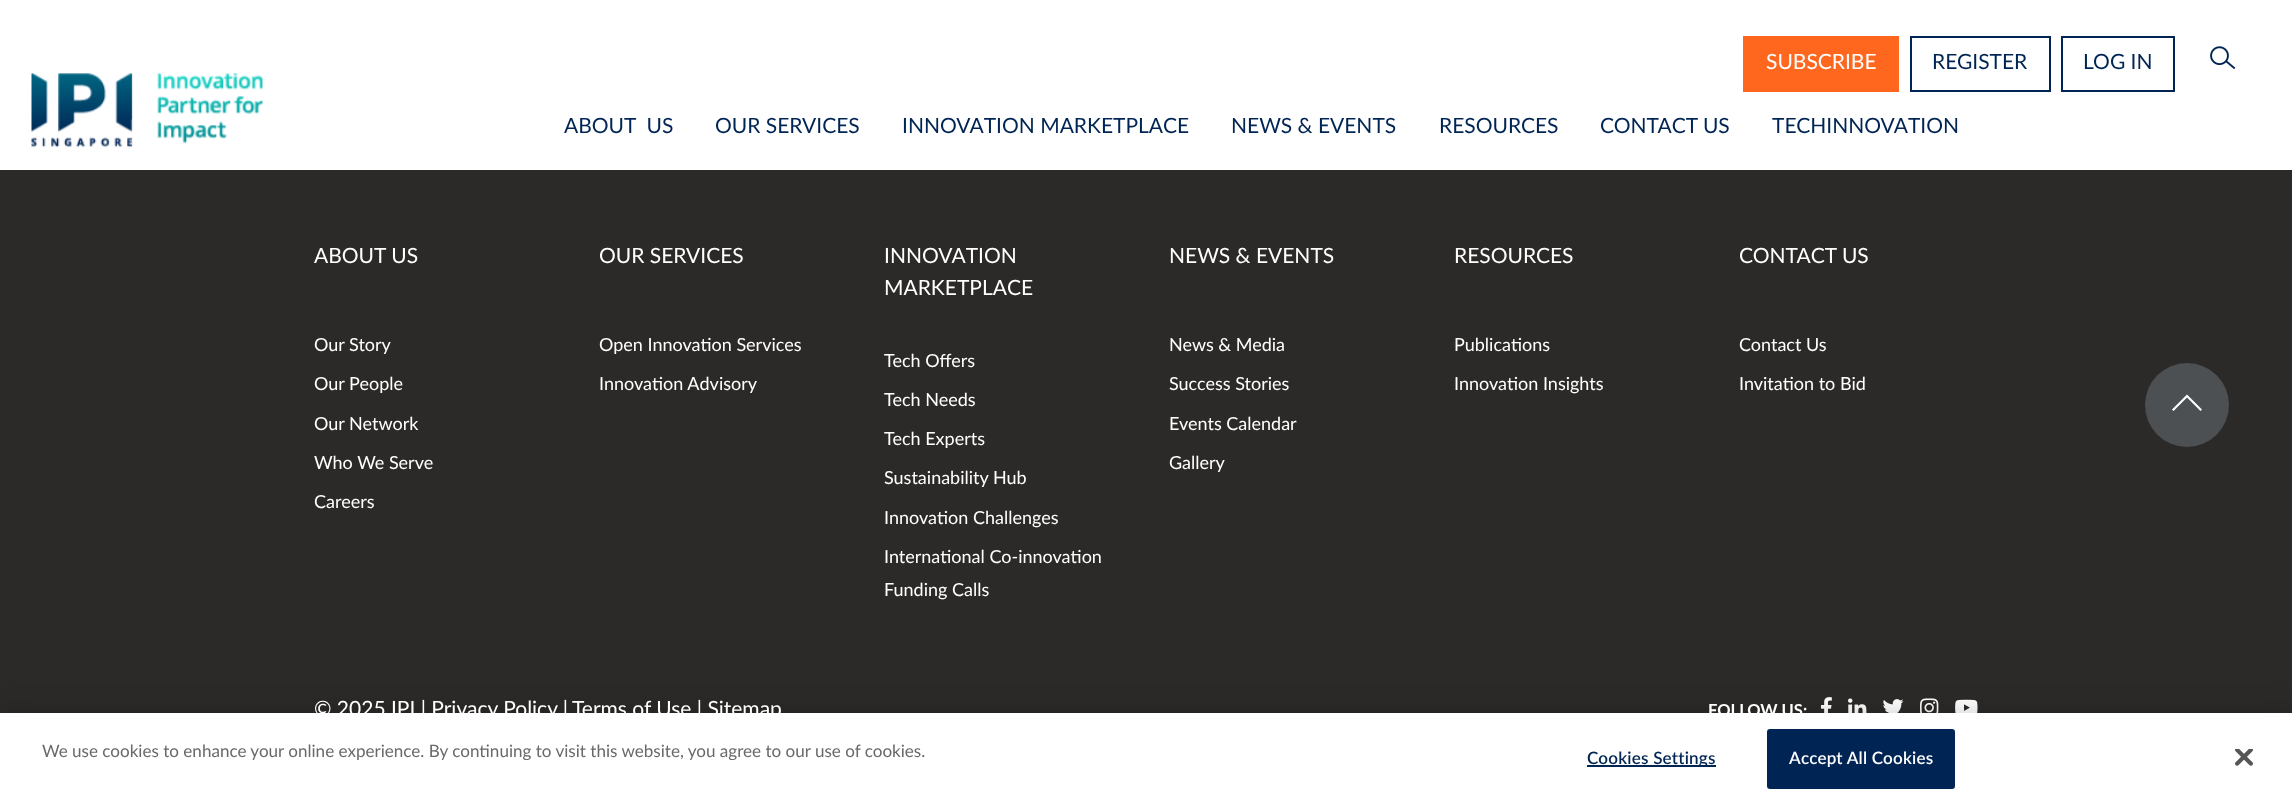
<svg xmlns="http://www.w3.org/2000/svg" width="2292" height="809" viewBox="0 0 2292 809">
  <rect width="100%" height="100%" fill="#2c2a29"/>
  <path d="M0 0h2292v170H0z" fill="#fff"/>
  <image x="31" y="73" width="232" height="75" href="img/1.png"/>
  <path d="M1743 36h156v56H1743z" fill="#ff671f"/>
  <path d="M1911 37h139v54H1911z" fill="none" stroke="#002554" stroke-width="2"/>
  <path d="M2062 37h112v54H2062z" fill="none" stroke="#002554" stroke-width="2"/>
  <image x="2210" y="46" width="26" height="24" href="img/2.png"/>
  <image x="1821" y="697" width="11" height="16" href="img/3.png"/>
  <image x="1848" y="698" width="19" height="15" href="img/4.png"/>
  <image x="1883" y="699" width="21" height="14" href="img/5.png"/>
  <image x="1920" y="698" width="19" height="15" href="img/6.png"/>
  <image x="1955" y="699" width="23" height="14" href="img/7.png"/>
  <circle cx="2187" cy="405" r="42" fill="#4c5053"/>
  <path d="M2187 394.5L2172 409.5L2173.5 411L2187 397.5L2200.5 411L2202 409.5Z" fill="#fff"/>
  <path d="M0 713h2292v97H0z" fill="#00000033" filter="blur(13.5px)"/>
  <path d="M0 713h2292v96H0z" fill="#fff"/>
  <path d="M1587 765h129v2H1587z" fill="#002554"/>
  <rect x="1768" y="730" width="186" height="58" rx="2" fill="#002554" stroke="#002554" stroke-width="2"/>
  <image x="2235" y="749" width="18" height="17" href="img/8.png"/>
  <text x="1766" y="69" font-family="Lato" font-size="21" fill="#fff">SUBSCRIBE</text>
  <g font-family="Lato" font-size="21" fill="#002554">
    <text x="1932" y="69">REGISTER</text>
    <text x="2083" y="69">LOG IN</text>
    <text x="564" y="133" xml:space="preserve">ABOUT  US</text>
    <text x="715" y="133">OUR SERVICES</text>
    <text x="902" y="133">INNOVATION MARKETPLACE</text>
    <text x="1231" y="133">NEWS &amp; EVENTS</text>
    <text x="1439" y="133">RESOURCES</text>
    <text x="1600" y="133">CONTACT US</text>
    <text x="1772" y="133">TECHINNOVATION</text>
  </g>
  <text x="314" y="263" font-family="Lato" font-size="21" fill="#fff">ABOUT US</text>
  <g font-family="Lato" font-size="18" fill="#fff">
    <text x="314" y="351">Our Story</text>
    <text x="314" y="390">Our People</text>
    <text x="314" y="430">Our Network</text>
    <text x="314" y="469">Who We Serve</text>
    <text x="314" y="508">Careers</text>
  </g>
  <text x="599" y="263" font-family="Lato" font-size="21" fill="#fff">OUR SERVICES</text>
  <g font-family="Lato" font-size="18" fill="#fff">
    <text x="599" y="351">Open Innovation Services</text>
    <text x="599" y="390">Innovation Advisory</text>
  </g>
  <g font-family="Lato" font-size="21" fill="#fff">
    <text x="884" y="263">INNOVATION</text>
    <text x="884" y="295">MARKETPLACE</text>
  </g>
  <g font-family="Lato" font-size="18" fill="#fff">
    <text x="884" y="367">Tech Offers</text>
    <text x="884" y="406">Tech Needs</text>
    <text x="884" y="445">Tech Experts</text>
    <text x="884" y="484">Sustainability Hub</text>
    <text x="884" y="524">Innovation Challenges</text>
    <text x="884" y="563">International Co-innovation</text>
    <text x="884" y="596">Funding Calls</text>
  </g>
  <text x="1169" y="263" font-family="Lato" font-size="21" fill="#fff">NEWS &amp; EVENTS</text>
  <g font-family="Lato" font-size="18" fill="#fff">
    <text x="1169" y="351">News &amp; Media</text>
    <text x="1169" y="390">Success Stories</text>
    <text x="1169" y="430">Events Calendar</text>
    <text x="1169" y="469">Gallery</text>
  </g>
  <text x="1454" y="263" font-family="Lato" font-size="21" fill="#fff">RESOURCES</text>
  <g font-family="Lato" font-size="18" fill="#fff">
    <text x="1454" y="351">Publications</text>
    <text x="1454" y="390">Innovation Insights</text>
  </g>
  <text x="1739" y="263" font-family="Lato" font-size="21" fill="#fff">CONTACT US</text>
  <g font-family="Lato" font-size="18" fill="#fff">
    <text x="1739" y="351">Contact Us</text>
    <text x="1739" y="390">Invitation to Bid</text>
  </g>
  <g font-family="Lato" font-size="21" fill="#fff">
    <text x="314" y="716">© 2025 IPI | Privacy Policy |</text>
    <text x="572" y="716">Terms of Use | Sitemap</text>
  </g>
  <text x="1708" y="716" font-family="Lato" font-size="16.5" font-weight="bold" fill="#fff">FOLLOW US:</text>
  <text x="42" y="757" font-family="Lato" font-size="17.07" fill="#696969">We use cookies to enhance your online experience. By continuing to visit this website, you agree to our use of cookies.</text>
  <text x="1587" y="764" font-family="Lato" font-size="17.07" font-weight="600" letter-spacing="0.2" fill="#002554">Cookies Settings</text>
  <text x="1789" y="764" font-family="Lato" font-size="17.07" font-weight="600" letter-spacing="0.2" fill="#fff">Accept All Cookies</text>
</svg>
